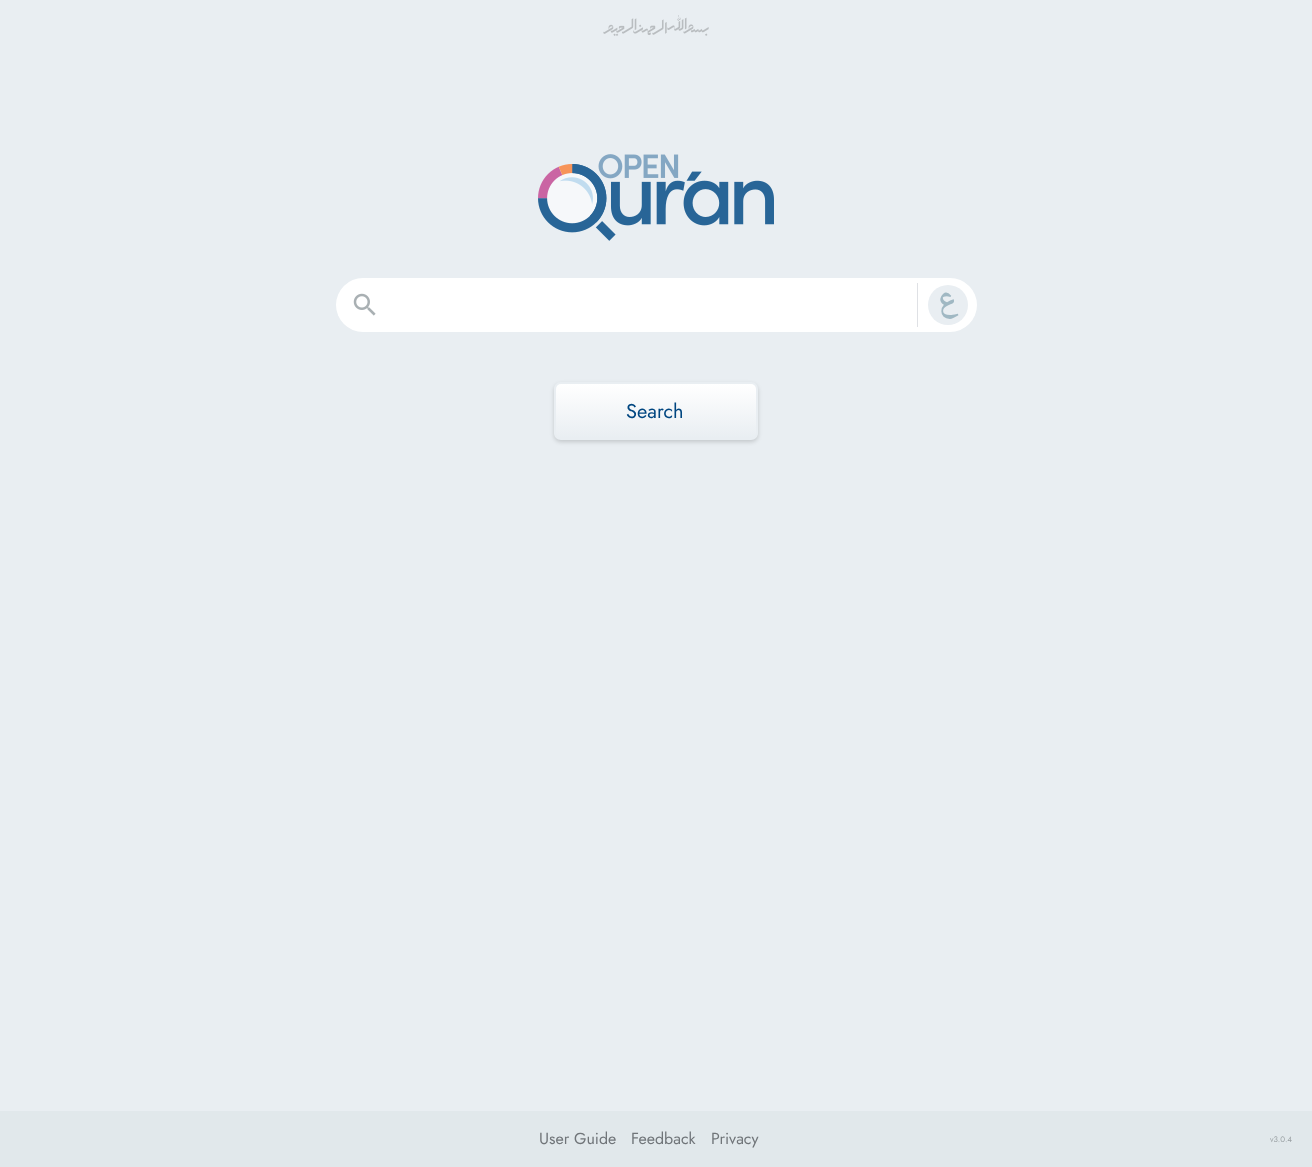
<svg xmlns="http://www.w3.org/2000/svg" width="1312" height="1167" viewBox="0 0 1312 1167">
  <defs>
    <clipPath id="clip1"><path d="M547 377H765V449H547ZM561 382H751C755 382 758 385 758 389V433C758 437 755 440 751 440H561C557 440 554 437 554 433V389C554 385 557 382 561 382Z" clip-rule="evenodd"/></clipPath>
    <linearGradient id="g1" gradientUnits="userSpaceOnUse" x1="656" y1="384" x2="656" y2="438"><stop offset="0" stop-color="#fff"/><stop offset="1" stop-color="#e9eef2"/></linearGradient>
  </defs>
  <rect width="100%" height="100%" fill="#e9eef2"/>
  <image x="603" y="15" width="106" height="21" href="img/1.png"/>
  <image x="538" y="154" width="236" height="87" href="img/2.png"/>
  <rect x="336" y="278" width="641" height="54" rx="27" fill="#fff"/>
  <image x="353" y="293" width="23" height="23" href="img/3.png"/>
  <path d="M917 283h1v44H917z" fill="#dfe1e5"/>
  <circle cx="948" cy="305" r="20" fill="#e9eef2"/>
  <g clip-path="url(#clip1)">
    <rect x="554" y="384" width="204" height="58" rx="7" fill="#00000029" filter="blur(2px)"/>
  </g>
  <rect x="556" y="384" width="200" height="54" rx="5" fill="url(#g1)"/>
  <path d="M0 1111h1312v56H0z" fill="#e1e8eb"/>
  <text x="958" y="313" font-family="Noto Naskh Arabic UI" font-size="34" font-weight="bold" direction="rtl" fill="#a0b8c3">ع</text>
  <text x="626" y="418" font-family="Jost" font-size="20" fill="#004680">Search</text>
  <g font-family="Jost" font-size="16" fill="#707579">
    <text x="539" y="1144">User Guide</text>
    <text x="631" y="1144">Feedback</text>
    <text x="711" y="1144">Privacy</text>
  </g>
  <text x="1270" y="1142" font-family="Jost" font-size="8" fill="#9ba1a4">v3.0.4</text>
</svg>
